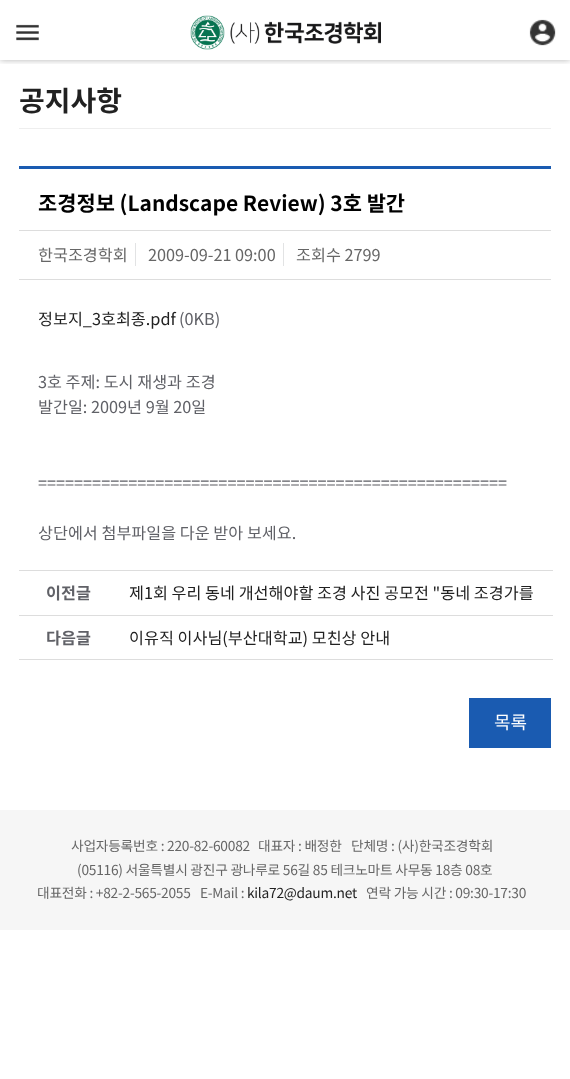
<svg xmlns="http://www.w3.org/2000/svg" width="570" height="1079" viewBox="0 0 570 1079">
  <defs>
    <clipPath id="clip1"><path d="M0 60h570v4H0z"/></clipPath>
  </defs>
  <rect width="100%" height="100%" fill="#fff"/>
  <g clip-path="url(#clip1)">
    <path d="M0 0h570v60H0z" fill="#0000004d" filter="blur(3px)"/>
  </g>
  <image x="16" y="24" width="23" height="17" href="img/1.png"/>
  <image x="190" y="15" width="191" height="35" href="img/2.png"/>
  <image x="529" y="19" width="27" height="27" href="img/3.png"/>
  <path d="M19 128h532v1H19z" fill="#eee"/>
  <path d="M19 166h532v3H19z" fill="#1a5bb1"/>
  <path d="M19 230h532v1H19z" fill="#ddd"/>
  <path d="M19 279h532v1H19z" fill="#ddd"/>
  <path d="M135 243h1v23H135z" fill="#e2e3e4"/>
  <path d="M283 243h1v23H283z" fill="#e2e3e4"/>
  <path d="M19 570h534v1H19z" fill="#ddd"/>
  <path d="M19 615h534v1H19z" fill="#ddd"/>
  <path d="M19 659h534v1H19z" fill="#ddd"/>
  <path d="M469 698h82v50H469z" fill="#1a5bb1"/>
  <path d="M0 810h570v120H0z" fill="#f6f6f6"/>
  <text x="19" y="111" font-family="Noto Sans KR" font-size="28" font-weight="bold" fill="#212121">공지사항</text>
  <text x="38" y="211" font-family="Noto Sans KR" font-size="20.9" font-weight="bold" fill="#000">조경정보 (Landscape Review) 3호 발간</text>
  <g font-family="Noto Sans KR" font-size="16.25" fill="#666">
    <text x="38" y="261">한국조경학회</text>
    <text x="148" y="261">2009-09-21 09:00</text>
    <text x="296" y="261">조회수 2799</text>
  </g>
  <text x="38" y="325" font-family="Noto Sans KR" font-size="16.25" fill="#212121">정보지_3호최종.pdf</text>
  <g font-family="Noto Sans KR" font-size="16.25" fill="#606167">
    <text x="179" y="325">(0KB)</text>
    <text x="38" y="388">3호 주제: 도시 재생과 조경</text>
    <text x="38" y="413">발간일: 2009년 9월 20일</text>
    <text x="38" y="489">====================================================</text>
    <text x="38" y="539">상단에서 첨부파일을 다운 받아 보세요.</text>
  </g>
  <text x="46" y="599" font-family="Noto Sans KR" font-size="16.25" font-weight="bold" fill="#606167">이전글</text>
  <text x="129" y="599" font-family="Noto Sans KR" font-size="16.25" fill="#212121">제1회 우리 동네 개선해야할 조경 사진 공모전 "동네 조경가를</text>
  <text x="46" y="644" font-family="Noto Sans KR" font-size="16.25" font-weight="bold" fill="#606167">다음글</text>
  <text x="129" y="644" font-family="Noto Sans KR" font-size="16.25" fill="#212121">이유직 이사님(부산대학교) 모친상 안내</text>
  <text x="494" y="729" font-family="Noto Sans KR" font-size="18" fill="#fff">목록</text>
  <g font-family="Noto Sans KR" font-size="13.75" letter-spacing="-0.25" fill="#666">
    <text x="71" y="851">사업자등록번호 : 220-82-60082</text>
    <text x="258" y="851">대표자 : 배정한</text>
    <text x="351" y="851">단체명 : (사)한국조경학회</text>
    <text x="77" y="875">(05116) 서울특별시 광진구 광나루로 56길 85 테크노마트 사무동 18층 08호</text>
    <text x="37" y="898">대표전화 : +82-2-565-2055</text>
    <text x="200" y="898">E-Mail :</text>
  </g>
  <text x="247" y="898" font-family="Noto Sans KR" font-size="13.75" letter-spacing="-0.25" fill="#212121">kila72@daum.net</text>
  <text x="366" y="898" font-family="Noto Sans KR" font-size="13.75" letter-spacing="-0.25" fill="#666">연락 가능 시간 : 09:30-17:30</text>
</svg>
